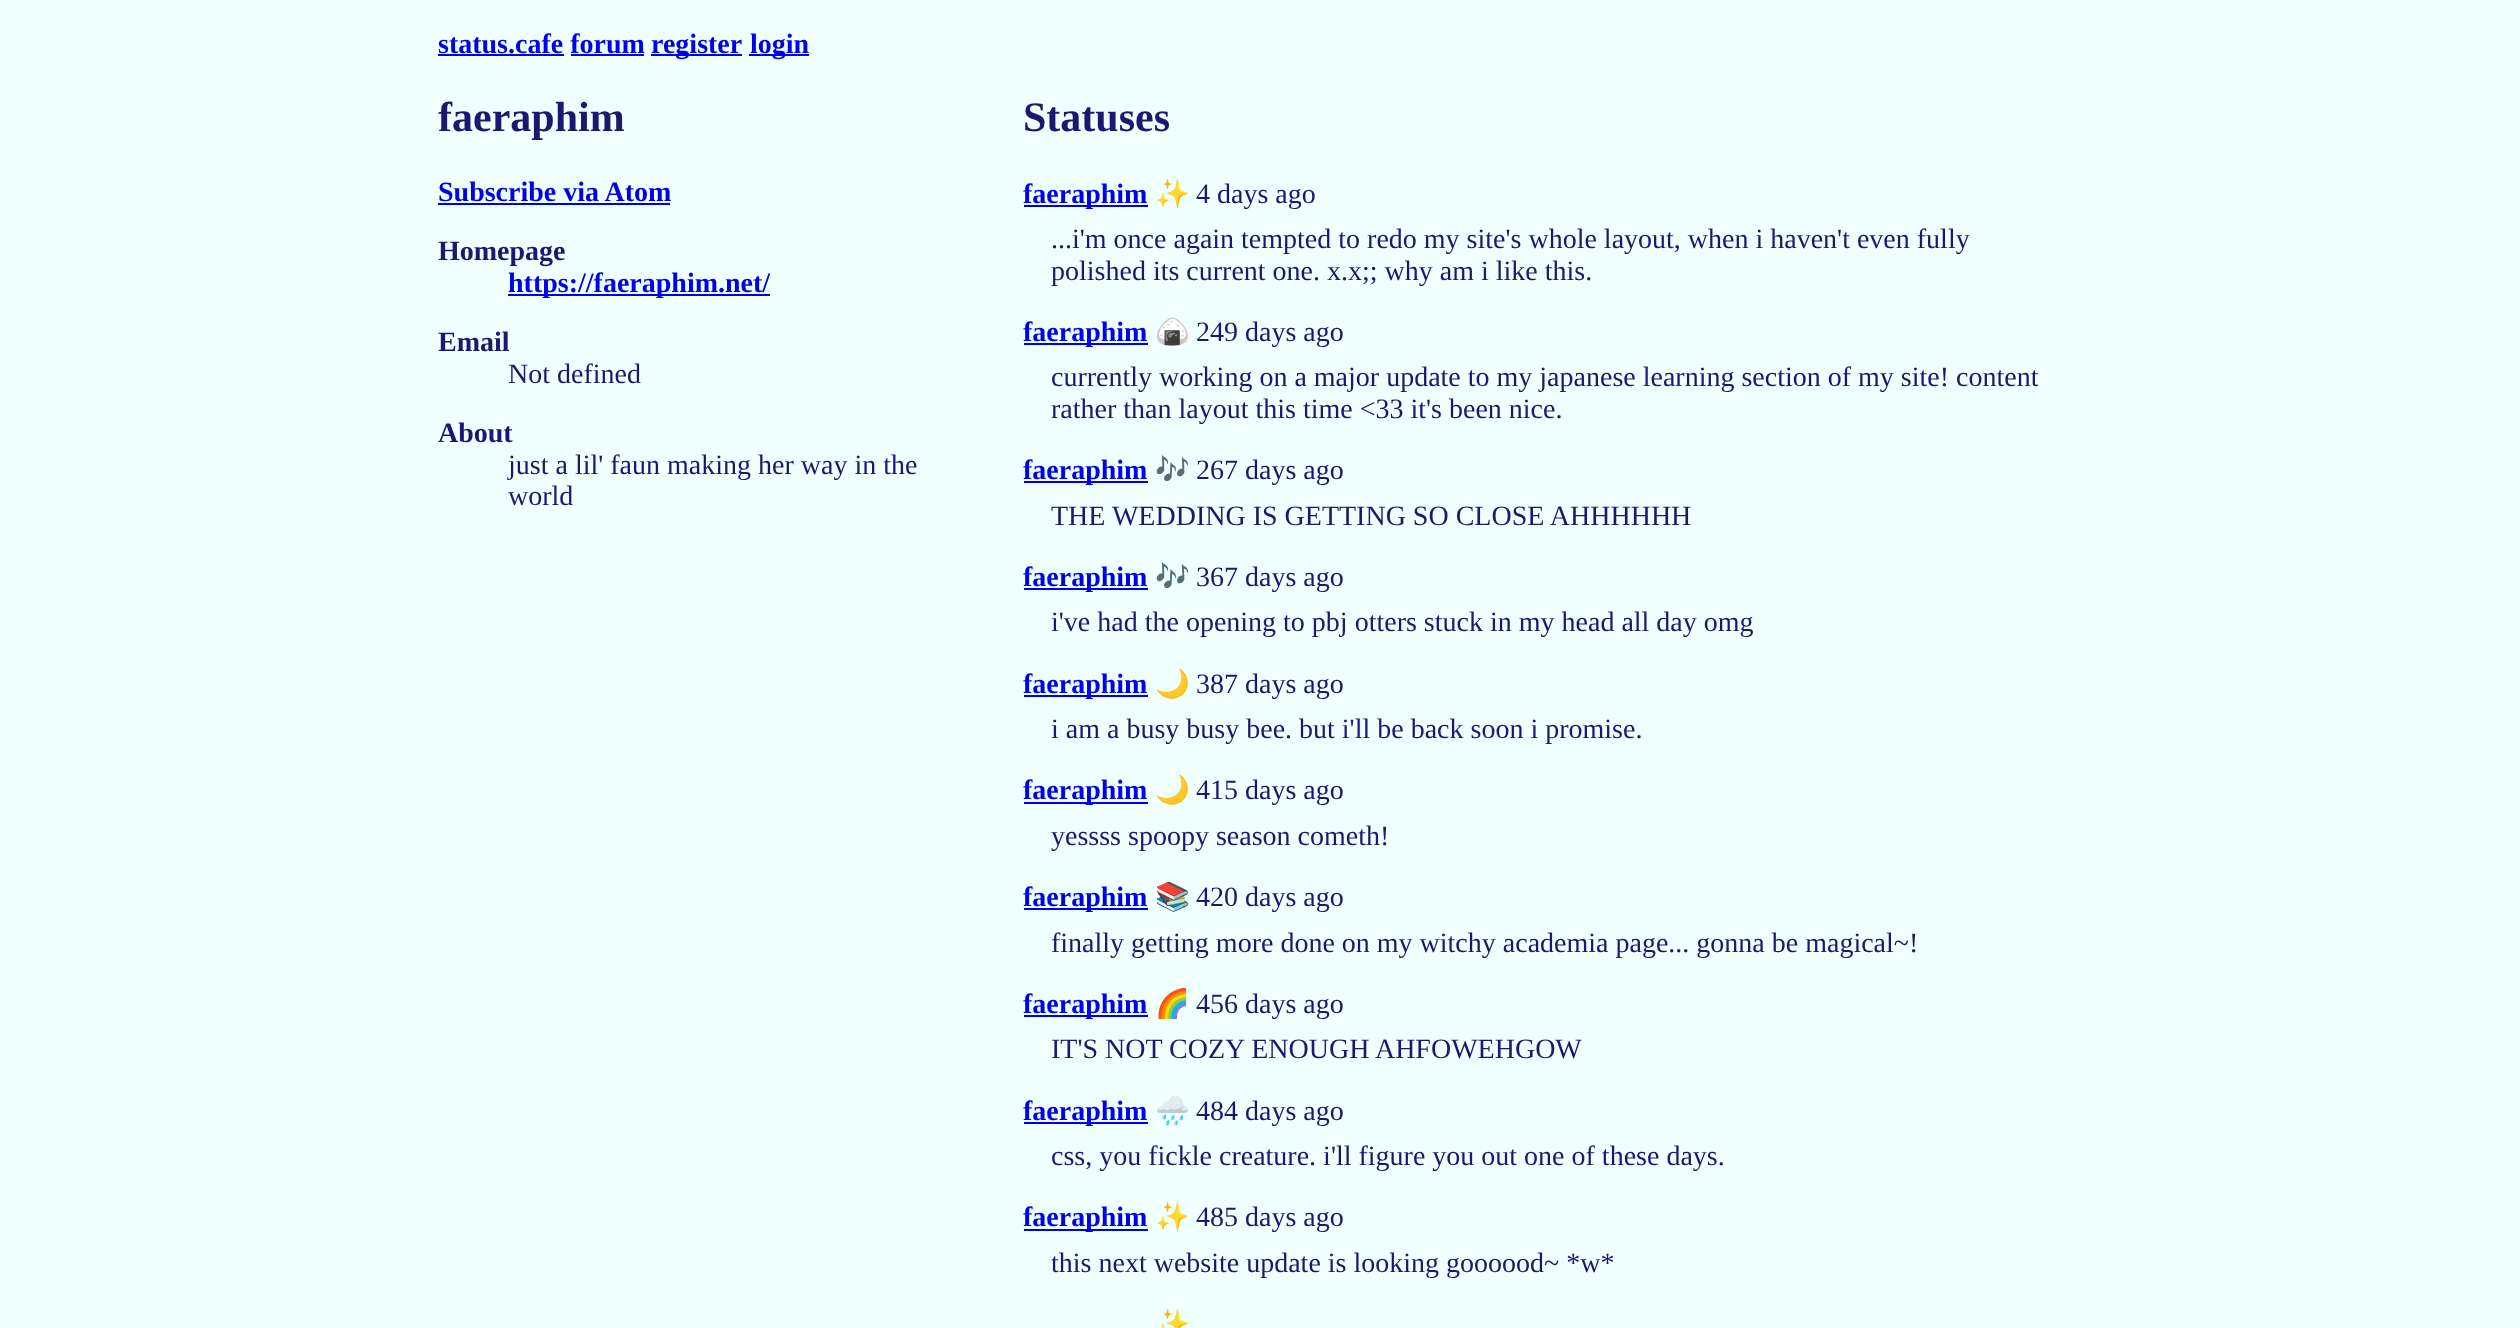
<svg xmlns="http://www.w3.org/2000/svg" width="2520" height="1328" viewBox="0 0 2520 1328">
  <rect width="100%" height="100%" fill="#f0ffff"/>
  <path d="M438 54h126v2H438z" fill="#00e"/>
  <path d="M651 54h91v2H651z" fill="#00e"/>
  <path d="M749 54h60v2H749z" fill="#00e"/>
  <path d="M571 54h73v2H571z" fill="#00e"/>
  <path d="M438 203h232v2H438z" fill="#00e"/>
  <path d="M508 294h262v2H508z" fill="#00e"/>
  <path d="M1024 205h124v2H1024z" fill="#00e"/>
  <path d="M1024 343h124v2H1024z" fill="#00e"/>
  <path d="M1024 481h124v2H1024z" fill="#00e"/>
  <path d="M1024 588h124v2H1024z" fill="#00e"/>
  <path d="M1024 695h124v2H1024z" fill="#00e"/>
  <path d="M1024 802h124v2H1024z" fill="#00e"/>
  <path d="M1024 908h124v2H1024z" fill="#00e"/>
  <path d="M1024 1015h124v2H1024z" fill="#00e"/>
  <path d="M1024 1122h124v2H1024z" fill="#00e"/>
  <path d="M1024 1229h124v2H1024z" fill="#00e"/>
  <g font-family="Liberation Serif" font-size="28" font-weight="bold" fill="#00e">
    <text x="438" y="53">status.cafe forum</text>
    <text x="651" y="53">register</text>
    <text x="750" y="53">login</text>
  </g>
  <text x="438" y="131" font-family="Liberation Serif" font-size="42" font-weight="bold" fill="#191970">faeraphim</text>
  <text x="438" y="201" font-family="Liberation Serif" font-size="28" font-weight="bold" fill="#00e">Subscribe via Atom</text>
  <text x="438" y="260" font-family="Liberation Serif" font-size="28" font-weight="bold" fill="#191970">Homepage</text>
  <text x="508" y="292" font-family="Liberation Serif" font-size="28" font-weight="bold" fill="#00e">https://faeraphim.net/</text>
  <text x="438" y="351" font-family="Liberation Serif" font-size="28" font-weight="bold" fill="#191970">Email</text>
  <text x="508" y="383" font-family="Liberation Serif" font-size="28" fill="#191970">Not defined</text>
  <text x="438" y="442" font-family="Liberation Serif" font-size="28" font-weight="bold" fill="#191970">About</text>
  <g font-family="Liberation Serif" font-size="28" fill="#191970">
    <text x="508" y="474">just a lil' faun making her way in the</text>
    <text x="508" y="505">world</text>
  </g>
  <text x="1023" y="131" font-family="Liberation Serif" font-size="42" font-weight="bold" fill="#191970">Statuses</text>
  <text x="1023" y="203" font-family="Liberation Serif" font-size="28" font-weight="bold" fill="#00e">faeraphim</text>
  <text x="1155" y="203" font-family="Noto Color Emoji" font-size="28" fill="#191970">✨</text>
  <g font-family="Liberation Serif" font-size="28" fill="#191970">
    <text x="1196" y="203">4 days ago</text>
    <text x="1051" y="248">...i'm once again tempted to redo my site's whole layout, when i haven't even fully</text>
    <text x="1051" y="280">polished its current one. x.x;; why am i like this.</text>
  </g>
  <text x="1023" y="341" font-family="Liberation Serif" font-size="28" font-weight="bold" fill="#00e">faeraphim</text>
  <text x="1155" y="341" font-family="Noto Color Emoji" font-size="28" fill="#191970">🍙</text>
  <g font-family="Liberation Serif" font-size="28" fill="#191970">
    <text x="1196" y="341">249 days ago</text>
    <text x="1051" y="386">currently working on a major update to my japanese learning section of my site! content</text>
    <text x="1051" y="418">rather than layout this time &lt;33 it's been nice.</text>
  </g>
  <text x="1023" y="479" font-family="Liberation Serif" font-size="28" font-weight="bold" fill="#00e">faeraphim</text>
  <text x="1155" y="479" font-family="Noto Color Emoji" font-size="28" fill="#191970">🎶</text>
  <g font-family="Liberation Serif" font-size="28" fill="#191970">
    <text x="1196" y="479">267 days ago</text>
    <text x="1051" y="525">THE WEDDING IS GETTING SO CLOSE AHHHHHH</text>
  </g>
  <text x="1023" y="586" font-family="Liberation Serif" font-size="28" font-weight="bold" fill="#00e">faeraphim</text>
  <text x="1155" y="586" font-family="Noto Color Emoji" font-size="28" fill="#191970">🎶</text>
  <g font-family="Liberation Serif" font-size="28" fill="#191970">
    <text x="1196" y="586">367 days ago</text>
    <text x="1051" y="631">i've had the opening to pbj otters stuck in my head all day omg</text>
  </g>
  <text x="1023" y="693" font-family="Liberation Serif" font-size="28" font-weight="bold" fill="#00e">faeraphim</text>
  <text x="1155" y="693" font-family="Noto Color Emoji" font-size="28" fill="#191970">🌙</text>
  <g font-family="Liberation Serif" font-size="28" fill="#191970">
    <text x="1196" y="693">387 days ago</text>
    <text x="1051" y="738">i am a busy busy bee. but i'll be back soon i promise.</text>
  </g>
  <text x="1023" y="799" font-family="Liberation Serif" font-size="28" font-weight="bold" fill="#00e">faeraphim</text>
  <text x="1155" y="799" font-family="Noto Color Emoji" font-size="28" fill="#191970">🌙</text>
  <g font-family="Liberation Serif" font-size="28" fill="#191970">
    <text x="1196" y="799">415 days ago</text>
    <text x="1051" y="845">yessss spoopy season cometh!</text>
  </g>
  <text x="1023" y="906" font-family="Liberation Serif" font-size="28" font-weight="bold" fill="#00e">faeraphim</text>
  <text x="1155" y="906" font-family="Noto Color Emoji" font-size="28" fill="#191970">📚</text>
  <g font-family="Liberation Serif" font-size="28" fill="#191970">
    <text x="1196" y="906">420 days ago</text>
    <text x="1051" y="952">finally getting more done on my witchy academia page... gonna be magical~!</text>
  </g>
  <text x="1023" y="1013" font-family="Liberation Serif" font-size="28" font-weight="bold" fill="#00e">faeraphim</text>
  <text x="1155" y="1013" font-family="Noto Color Emoji" font-size="28" fill="#191970">🌈</text>
  <g font-family="Liberation Serif" font-size="28" fill="#191970">
    <text x="1196" y="1013">456 days ago</text>
    <text x="1051" y="1058">IT'S NOT COZY ENOUGH AHFOWEHGOW</text>
  </g>
  <text x="1023" y="1120" font-family="Liberation Serif" font-size="28" font-weight="bold" fill="#00e">faeraphim</text>
  <text x="1155" y="1120" font-family="Noto Color Emoji" font-size="28" fill="#191970">🌧️</text>
  <g font-family="Liberation Serif" font-size="28" fill="#191970">
    <text x="1196" y="1120">484 days ago</text>
    <text x="1051" y="1165">css, you fickle creature. i'll figure you out one of these days.</text>
  </g>
  <text x="1023" y="1226" font-family="Liberation Serif" font-size="28" font-weight="bold" fill="#00e">faeraphim</text>
  <text x="1155" y="1226" font-family="Noto Color Emoji" font-size="28" fill="#191970">✨</text>
  <g font-family="Liberation Serif" font-size="28" fill="#191970">
    <text x="1196" y="1226">485 days ago</text>
    <text x="1051" y="1272">this next website update is looking goooood~ *w*</text>
  </g>
  <text x="1155" y="1333" font-family="Noto Color Emoji" font-size="28" fill="#191970">✨</text>
</svg>
